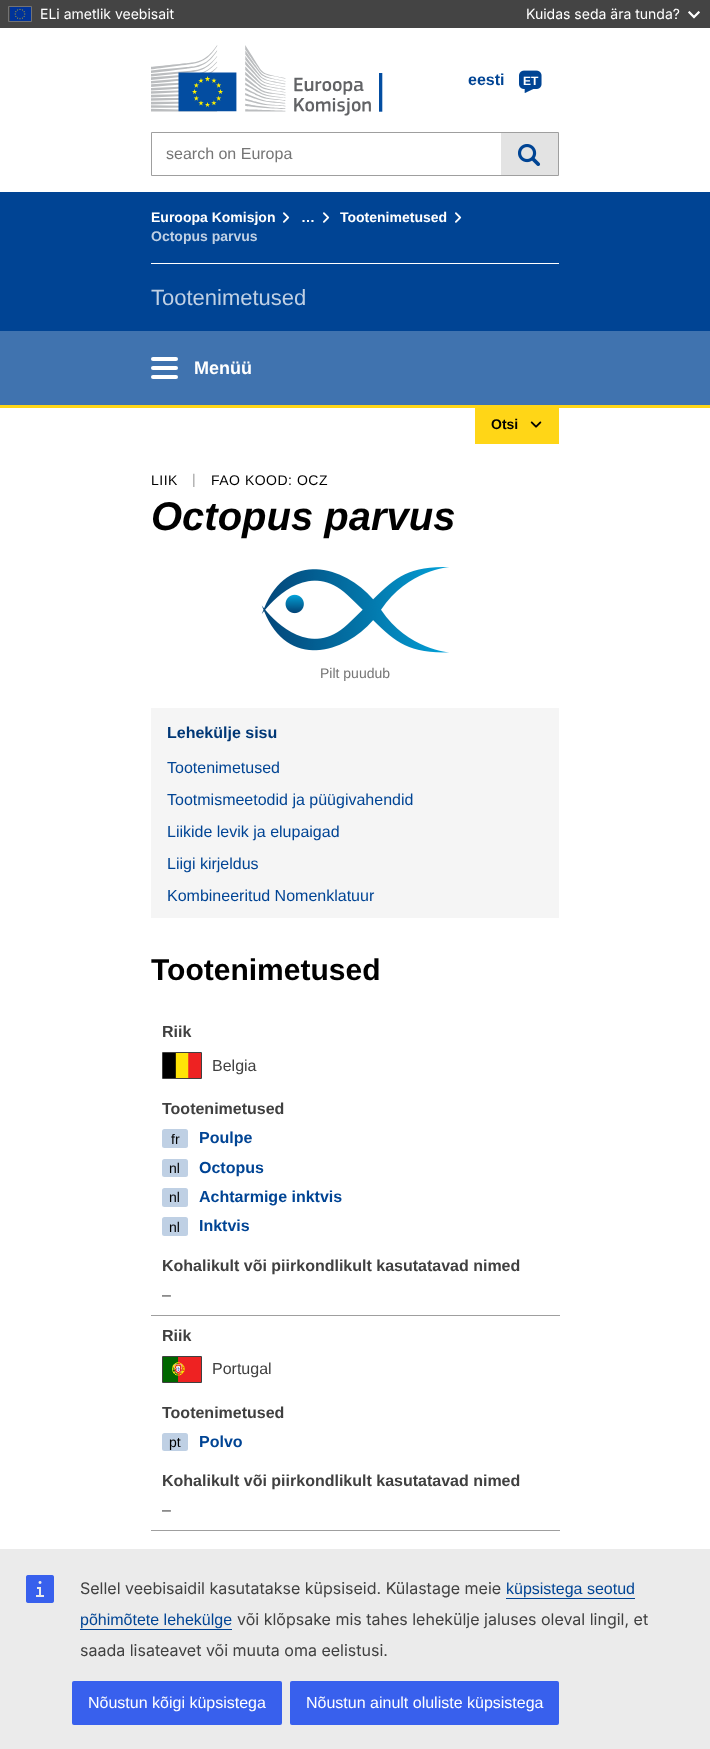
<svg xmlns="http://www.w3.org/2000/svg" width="710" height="1749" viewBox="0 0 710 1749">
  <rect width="100%" height="100%" fill="#fff"/>
  <path d="M0 0h710v28H0z" fill="#444"/>
  <path d="M8.5 6.5h23v15H8.5z" fill="none" stroke="#737373"/>
  <image x="10" y="7" width="21" height="14" href="img/1.png"/>
  <image x="688" y="11" width="12" height="8" href="img/2.png"/>
  <image x="151" y="45" width="232" height="71" href="img/3.png"/>
  <image x="519" y="70" width="23" height="23" href="img/4.png"/>
  <path d="M151.5 132.5h407v43H151.5z" fill="none" stroke="#9f9f9f"/>
  <path d="M501 133h57v42H501z" fill="#e3e3e3"/>
  <image x="518" y="144" width="23" height="22" href="img/5.png"/>
  <path d="M0 192h710v139H0z" fill="#004494"/>
  <path d="M151 263h408v1H151z" fill="#fff"/>
  <image x="283" y="212" width="7" height="11" href="img/6.png"/>
  <image x="323" y="212" width="7" height="11" href="img/6.png"/>
  <image x="455" y="212" width="7" height="11" href="img/6.png"/>
  <path d="M0 331h710v74H0z" fill="#4073af"/>
  <rect x="151" y="366" width="27" height="4" rx="2" fill="#fff"/>
  <rect x="151" y="357" width="27" height="4" rx="2" fill="#fff"/>
  <rect x="151" y="375" width="27" height="4" rx="2" fill="#fff"/>
  <path d="M0 405h710v3H0z" fill="#ffd617"/>
  <path d="M475 408h84v36H475z" fill="#ffd617"/>
  <image x="530" y="421" width="12" height="7" href="img/7.png"/>
  <image x="261" y="567" width="188" height="86" href="img/8.png"/>
  <path d="M151 708h408v210H151z" fill="#f5f5f5"/>
  <path d="M151 1315h409v1H151z" fill="#9f9f9f"/>
  <image x="163" y="1053" width="38" height="25" href="img/9.png"/>
  <path d="M162.5 1052.5h39v26H162.5z" fill="none" stroke="#404040"/>
  <rect x="162" y="1129" width="26" height="19" rx="2.5" fill="#bfd0e4"/>
  <rect x="162" y="1159" width="26" height="18" rx="2.5" fill="#bfd0e4"/>
  <rect x="162" y="1188" width="26" height="19" rx="2.5" fill="#bfd0e4"/>
  <rect x="162" y="1217" width="26" height="19" rx="2.5" fill="#bfd0e4"/>
  <path d="M151 1530h409v1H151z" fill="#9f9f9f"/>
  <image x="163" y="1357" width="38" height="25" href="img/10.png"/>
  <path d="M162.5 1356.5h39v26H162.5z" fill="none" stroke="#404040"/>
  <rect x="162" y="1433" width="26" height="18" rx="2.5" fill="#bfd0e4"/>
  <path d="M0 1549h710v200H0z" fill="#ebebeb"/>
  <image x="26" y="1575" width="28" height="28" href="img/11.png"/>
  <path d="M506 1598h129v1H506z" fill="#004494"/>
  <path d="M80 1629h152v1H80z" fill="#004494"/>
  <rect x="72" y="1681" width="210" height="44" rx="2" fill="#3860ed"/>
  <rect x="290" y="1681" width="269" height="44" rx="2" fill="#3860ed"/>
  <g font-family="Inter" font-size="14" fill="#fff">
    <text x="40" y="19">ELi ametlik veebisait</text>
    <text x="526" y="19">Kuidas seda ära tunda?</text>
  </g>
  <text x="468" y="85" font-family="Liberation Sans" font-size="16" font-weight="bold" fill="#004494">eesti</text>
  <text x="523" y="85" font-family="Liberation Sans" font-size="12" font-weight="bold" fill="#fff">ET</text>
  <text x="166" y="159" font-family="Liberation Sans" font-size="16" fill="#757575">search on Europa</text>
  <g font-family="Liberation Sans" font-size="14" font-weight="bold" fill="#fff">
    <text x="151" y="222">Euroopa Komisjon</text>
    <text x="301" y="222">…</text>
    <text x="340" y="222">Tootenimetused</text>
  </g>
  <text x="151" y="241" font-family="Liberation Sans" font-size="14" font-weight="bold" fill="#bfd0e4">Octopus parvus</text>
  <text x="151" y="305" font-family="Liberation Sans" font-size="22" fill="#bfd0e4">Tootenimetused</text>
  <text x="194" y="374" font-family="Liberation Sans" font-size="18" font-weight="bold" fill="#fff">Menüü</text>
  <text x="491" y="429" font-family="Liberation Sans" font-size="14" font-weight="bold" fill="#000">Otsi</text>
  <text x="151" y="485" font-family="Liberation Sans" font-size="14" letter-spacing="0.5" fill="#000">LIIK</text>
  <text x="192" y="484" font-family="Liberation Sans" font-size="14" letter-spacing="0.5" fill="#9f9f9f">|</text>
  <text x="211" y="485" font-family="Liberation Sans" font-size="14" letter-spacing="0.5" fill="#000">FAO KOOD: OCZ</text>
  <text x="151" y="530" font-family="Liberation Sans" font-size="40" font-weight="bold" font-style="italic" fill="#000">Octopus parvus</text>
  <text x="320" y="678" font-family="Liberation Sans" font-size="14" fill="#757575">Pilt puudub</text>
  <text x="167" y="738" font-family="Liberation Sans" font-size="16" font-weight="bold" fill="#003776">Lehekülje sisu</text>
  <g font-family="Liberation Sans" font-size="16" fill="#004494">
    <text x="167" y="773">Tootenimetused</text>
    <text x="167" y="805">Tootmismeetodid ja püügivahendid</text>
    <text x="167" y="837">Liikide levik ja elupaigad</text>
    <text x="167" y="869">Liigi kirjeldus</text>
    <text x="167" y="901">Kombineeritud Nomenklatuur</text>
  </g>
  <text x="151" y="980" font-family="Liberation Sans" font-size="30" font-weight="bold" fill="#000">Tootenimetused</text>
  <text x="162" y="1037" font-family="Liberation Sans" font-size="16" font-weight="bold" fill="#404040">Riik</text>
  <text x="212" y="1071" font-family="Liberation Sans" font-size="16" fill="#404040">Belgia</text>
  <text x="162" y="1114" font-family="Liberation Sans" font-size="16" font-weight="bold" fill="#404040">Tootenimetused</text>
  <text x="171" y="1144" font-family="Liberation Sans" font-size="14" fill="#000">fr</text>
  <text x="199" y="1143" font-family="Liberation Sans" font-size="16" font-weight="bold" fill="#004494">Poulpe</text>
  <text x="169" y="1173" font-family="Liberation Sans" font-size="14" fill="#000">nl</text>
  <text x="199" y="1173" font-family="Liberation Sans" font-size="16" font-weight="bold" fill="#004494">Octopus</text>
  <text x="169" y="1202" font-family="Liberation Sans" font-size="14" fill="#000">nl</text>
  <text x="199" y="1202" font-family="Liberation Sans" font-size="16" font-weight="bold" fill="#004494">Achtarmige inktvis</text>
  <text x="169" y="1232" font-family="Liberation Sans" font-size="14" fill="#000">nl</text>
  <text x="199" y="1231" font-family="Liberation Sans" font-size="16" font-weight="bold" fill="#004494">Inktvis</text>
  <text x="162" y="1271" font-family="Liberation Sans" font-size="16" font-weight="bold" fill="#404040">Kohalikult või piirkondlikult kasutatavad nimed</text>
  <text x="162" y="1300" font-family="Liberation Sans" font-size="16" fill="#404040">–</text>
  <text x="162" y="1341" font-family="Liberation Sans" font-size="16" font-weight="bold" fill="#404040">Riik</text>
  <text x="212" y="1374" font-family="Liberation Sans" font-size="16" fill="#404040">Portugal</text>
  <text x="162" y="1418" font-family="Liberation Sans" font-size="16" font-weight="bold" fill="#404040">Tootenimetused</text>
  <text x="169" y="1447" font-family="Liberation Sans" font-size="14" fill="#000">pt</text>
  <text x="199" y="1447" font-family="Liberation Sans" font-size="16" font-weight="bold" fill="#004494">Polvo</text>
  <text x="162" y="1486" font-family="Liberation Sans" font-size="16" font-weight="bold" fill="#404040">Kohalikult või piirkondlikult kasutatavad nimed</text>
  <text x="162" y="1515" font-family="Liberation Sans" font-size="16" fill="#404040">–</text>
  <text x="80" y="1594" font-family="Inter" font-size="16" fill="#404040">Sellel veebisaidil kasutatakse küpsiseid. Külastage meie</text>
  <g font-family="Liberation Sans" font-size="16" fill="#004494">
    <text x="506" y="1594">küpsistega seotud</text>
    <text x="80" y="1625">põhimõtete lehekülge</text>
  </g>
  <g font-family="Inter" font-size="16" fill="#404040">
    <text x="237" y="1625">või klõpsake mis tahes lehekülje jaluses oleval lingil, et</text>
    <text x="80" y="1656">saada lisateavet või muuta oma eelistusi.</text>
  </g>
  <g font-family="Liberation Sans" font-size="16" fill="#fff">
    <text x="88" y="1708">Nõustun kõigi küpsistega</text>
    <text x="306" y="1708">Nõustun ainult oluliste küpsistega</text>
  </g>
</svg>
